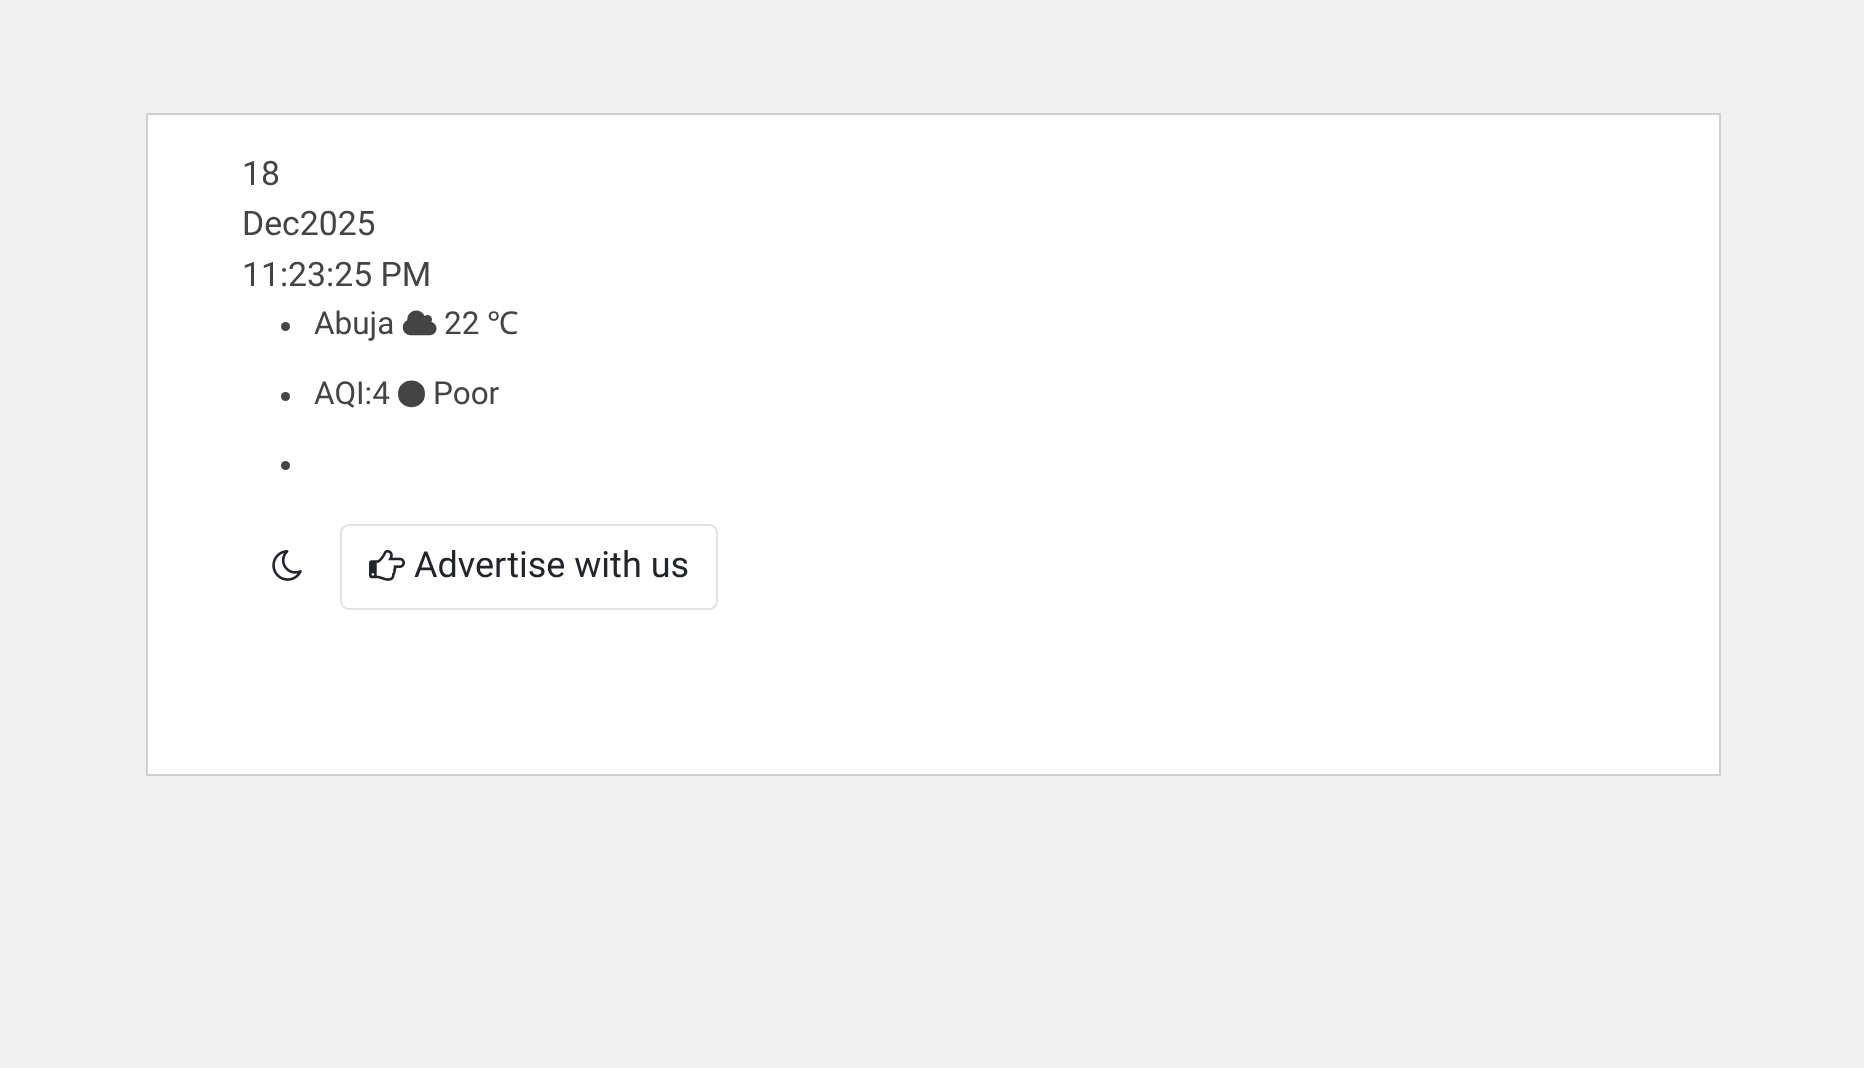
<svg xmlns="http://www.w3.org/2000/svg" width="1864" height="1068" viewBox="0 0 1864 1068">
  <rect width="100%" height="100%" fill="#f1f1f1"/>
  <path d="M147 114h1573v661H147z" fill="#fff" stroke="#ccd0d4" stroke-width="2"/>
  <circle cx="285.5" cy="326.5" r="4.5" fill="#444"/>
  <image x="402" y="310" width="35" height="26" href="img/1.png"/>
  <circle cx="285.5" cy="396.5" r="4.5" fill="#444"/>
  <path d="M425 394C425 376 398 376 398 394C398 411.5 425 411.5 425 394Z" fill="#444"/>
  <circle cx="285.5" cy="465.5" r="4.5" fill="#444"/>
  <image x="272" y="550" width="30" height="31" href="img/2.png"/>
  <rect x="341" y="525" width="376" height="84" rx="8" fill="none" stroke="#dee2e6" stroke-width="2"/>
  <image x="369" y="550" width="36" height="31" href="img/3.png"/>
  <g font-family="Roboto" font-size="33.75" fill="#444">
    <text x="242" y="185">18</text>
    <text x="242" y="235">Dec2025</text>
    <text x="242" y="286">11:23:25 PM</text>
  </g>
  <g font-family="Roboto" font-size="31.5" fill="#444">
    <text x="314" y="334">Abuja</text>
    <text x="444" y="334">22</text>
  </g>
  <text x="487" y="334" font-family="Noto Sans" font-size="31.5" fill="#444">℃</text>
  <g font-family="Roboto" font-size="31.5" fill="#444">
    <text x="314" y="404">AQI:4</text>
    <text x="433" y="404">Poor</text>
  </g>
  <text x="414" y="577" font-family="Roboto" font-size="36" fill="#212529">Advertise with us</text>
</svg>
